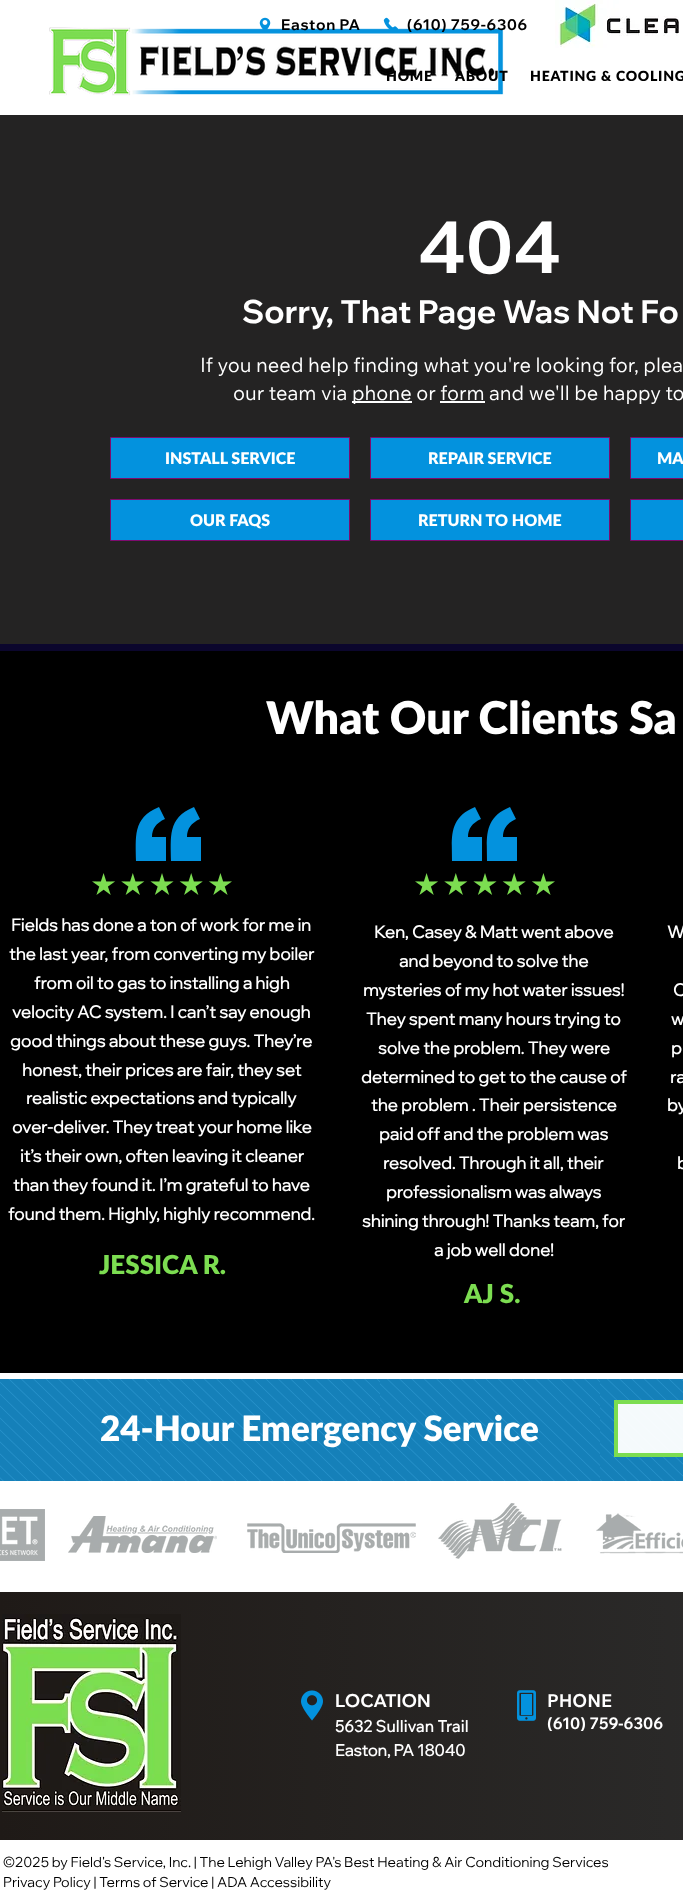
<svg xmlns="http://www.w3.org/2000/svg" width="683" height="1894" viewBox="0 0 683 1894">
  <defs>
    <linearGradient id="g1" gradientUnits="userSpaceOnUse" x1="0" y1="1716" x2="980" y2="1716"><stop offset="0" stop-color="#1f1a17"/><stop offset="1" stop-color="#2f3030"/></linearGradient>
  </defs>
  <rect width="100%" height="100%" fill="#0b062d"/>
  <path d="M0 0h683v115H0z" fill="#fff"/>
  <image x="49" y="27" width="455" height="69" href="img/4.png"/>
  <image x="259" y="17" width="12" height="13" href="img/1.png"/>
  <image x="383" y="17" width="15" height="13" href="img/2.png"/>
  <image x="555" y="0" width="124" height="48" href="img/3.png"/>
  <path d="M0 115h683v529H0z" fill="#242323"/>
  <path d="M352 401h60v2H352z" fill="#fff"/>
  <path d="M440 401h45v2H440z" fill="#fff"/>
  <path d="M110.5 437.5h239v41H110.5z" fill="#0392de" stroke="#7e0b6e"/>
  <path d="M370.5 437.5h239v41H370.5z" fill="#0392de" stroke="#7e0b6e"/>
  <path d="M630.5 437.5h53v41H630.5z" fill="#0392de" stroke="#7e0b6e"/>
  <path d="M110.5 499.5h239v41H110.5z" fill="#0392de" stroke="#7e0b6e"/>
  <path d="M370.5 499.5h239v41H370.5z" fill="#0392de" stroke="#7e0b6e"/>
  <path d="M630.5 499.5h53v41H630.5z" fill="#0392de" stroke="#7e0b6e"/>
  <path d="M0 651h683v722H0z" fill="#000"/>
  <path d="M201 861H171C171 838 167 818 194 807L200 819C191 823 187 829 187 837H201ZM166 861H136C136 838 132 818 159 807L165 819C156 823 152 829 152 837H166Z" fill="#0392de" fill-rule="evenodd"/>
  <image x="92" y="873" width="140" height="22" href="img/5.png"/>
  <path d="M517 861H487C487 838 483 818 510 807L516 819C507 823 503 829 503 837H517ZM482 861H452C452 838 448 818 475 807L481 819C472 823 468 829 468 837H482Z" fill="#0392de" fill-rule="evenodd"/>
  <image x="415" y="873" width="140" height="22" href="img/5.png"/>
  <path d="M0 1373h683v6H0z" fill="#fff"/>
  <path d="M0 1379h683v102H0z" fill="#0392de"/>
  <image x="0" y="1379" width="683" height="102" href="img/6.png"/>
  <path d="M616 1402h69v53H616z" fill="#fffffff5" stroke="#7cdd51" stroke-width="4"/>
  <path d="M0 1481h683v111H0z" fill="#fff"/>
  <image x="0" y="1509" width="45" height="52" href="img/7.png"/>
  <image x="68" y="1516" width="149" height="37" href="img/8.png"/>
  <image x="247" y="1523" width="169" height="30" href="img/9.png"/>
  <image x="438" y="1503" width="124" height="56" href="img/10.png"/>
  <image x="596" y="1513" width="87" height="41" href="img/11.png"/>
  <path d="M0 1592h683v248H0z" fill="url(#g1)"/>
  <image x="2" y="1614" width="179" height="198" href="img/12.png"/>
  <image x="301" y="1690" width="22" height="31" href="img/13.png"/>
  <image x="517" y="1690" width="19" height="31" href="img/14.png"/>
  <path d="M0 1840h683v54H0z" fill="#fff"/>
  <g font-family="'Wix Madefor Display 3'" font-size="15" font-weight="bold" letter-spacing="0.75" fill="#000">
    <text x="281" y="30">Easton PA</text>
    <text x="407" y="30">(610) 759-6306</text>
  </g>
  <g font-family="Lato" font-size="14" font-weight="900" letter-spacing="0.75" fill="#000">
    <text x="386" y="81">HOME</text>
    <text x="455" y="81">ABOUT</text>
    <text x="530" y="81">HEATING &amp; COOLING</text>
  </g>
  <text x="418" y="273" font-family="Wix Madefor Display" font-size="72" font-weight="bold" fill="#fff">404</text>
  <text x="242" y="323" font-family="Wix Madefor Display" font-size="32" font-weight="bold" fill="#fff">Sorry, That Page Was Not Fo</text>
  <g font-family="Wix Madefor Text" font-size="20" fill="#fff">
    <text x="200" y="372">If you need help finding what you're looking for, plea</text>
    <text x="233" y="400">our team via</text>
    <text x="352" y="400">phone or form and we'll be happy to</text>
  </g>
  <g font-family="Lato" font-size="16" font-weight="900" fill="#fff">
    <text x="165" y="464">INSTALL SERVICE</text>
    <text x="428" y="464">REPAIR SERVICE</text>
    <text x="657" y="464">MA</text>
    <text x="190" y="526">OUR FAQS</text>
    <text x="418" y="526">RETURN TO HOME</text>
  </g>
  <g font-family="'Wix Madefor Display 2'" font-size="17" font-weight="bold" fill="#fff">
    <text x="11" y="931">Fields has done a ton of work for me in</text>
    <text x="9" y="960">the last year, from converting my boiler</text>
    <text x="34" y="989">from oil to gas to installing a high</text>
    <text x="12" y="1018">velocity AC system. I can’t say enough</text>
    <text x="10" y="1047">good things about these guys. They’re</text>
    <text x="22" y="1076">honest, their prices are fair, they set</text>
    <text x="26" y="1104">realistic expectations and typically</text>
    <text x="12" y="1133">over-deliver. They treat your home like</text>
    <text x="20" y="1162">it’s their own, often leaving it cleaner</text>
    <text x="13" y="1191">than they found it. I’m grateful to have</text>
    <text x="8" y="1220">found them. Highly, highly recommend.</text>
  </g>
  <text x="99" y="1274" font-family="Lato" font-size="26" font-weight="900" fill="#7cdd51">JESSICA R.</text>
  <text x="266" y="734" font-family="Lato" font-size="45" font-weight="900" fill="#fff">What Our Clients Sa</text>
  <g font-family="'Wix Madefor Display 2'" font-size="17" font-weight="bold" fill="#fff">
    <text x="374" y="938">Ken, Casey &amp; Matt went above</text>
    <text x="399" y="967">and beyond to solve the</text>
    <text x="363" y="996">mysteries of my hot water issues!</text>
    <text x="366" y="1025">They spent many hours trying to</text>
    <text x="378" y="1054">solve the problem. They were</text>
    <text x="361" y="1083">determined to get to the cause of</text>
    <text x="371" y="1111">the problem . Their persistence</text>
    <text x="379" y="1140">paid off and the problem was</text>
    <text x="383" y="1169">resolved. Through it all, their</text>
    <text x="386" y="1198">professionalism was always</text>
    <text x="362" y="1227">shining through! Thanks team, for</text>
    <text x="434" y="1256">a job well done!</text>
  </g>
  <text x="464" y="1303" font-family="Lato" font-size="26" font-weight="900" fill="#7cdd51">AJ S.</text>
  <g font-family="'Wix Madefor Display 2'" font-size="17" font-weight="bold" fill="#fff">
    <text x="667" y="938">W</text>
    <text x="673" y="996">C</text>
    <text x="671" y="1025">w</text>
    <text x="671" y="1054">p</text>
    <text x="670" y="1083">ra</text>
    <text x="667" y="1111">by</text>
    <text x="677" y="1169">b</text>
  </g>
  <text x="100" y="1441" font-family="Lato" font-size="35" font-weight="900" fill="#fff">24-Hour Emergency Service</text>
  <text x="335" y="1707" font-family="'Wix Madefor Display 3'" font-size="18" font-weight="bold" fill="#fff">LOCATION</text>
  <text x="335" y="1732" font-family="Wix Madefor Text" font-size="16" font-weight="bold" fill="#fff">5632 Sullivan Trail</text>
  <text x="335" y="1756" font-family="'Wix Madefor Display 2'" font-size="16" font-weight="bold" fill="#fff">Easton, PA 18040</text>
  <text x="547" y="1707" font-family="'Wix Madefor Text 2'" font-size="18" font-weight="bold" fill="#fff">PHONE</text>
  <text x="547" y="1729" font-family="'Wix Madefor Text 2'" font-size="16" font-weight="bold" fill="#fff">(610) 759-6306</text>
  <g font-family="Wix Madefor Display" font-size="14" fill="#000">
    <text x="3" y="1867">©2025 by Field's Service, Inc. | The Lehigh Valley PA's Best Heating &amp; Air Conditioning Services</text>
    <text x="3" y="1887">Privacy Policy | Terms of Service | ADA Accessibility</text>
  </g>
</svg>
